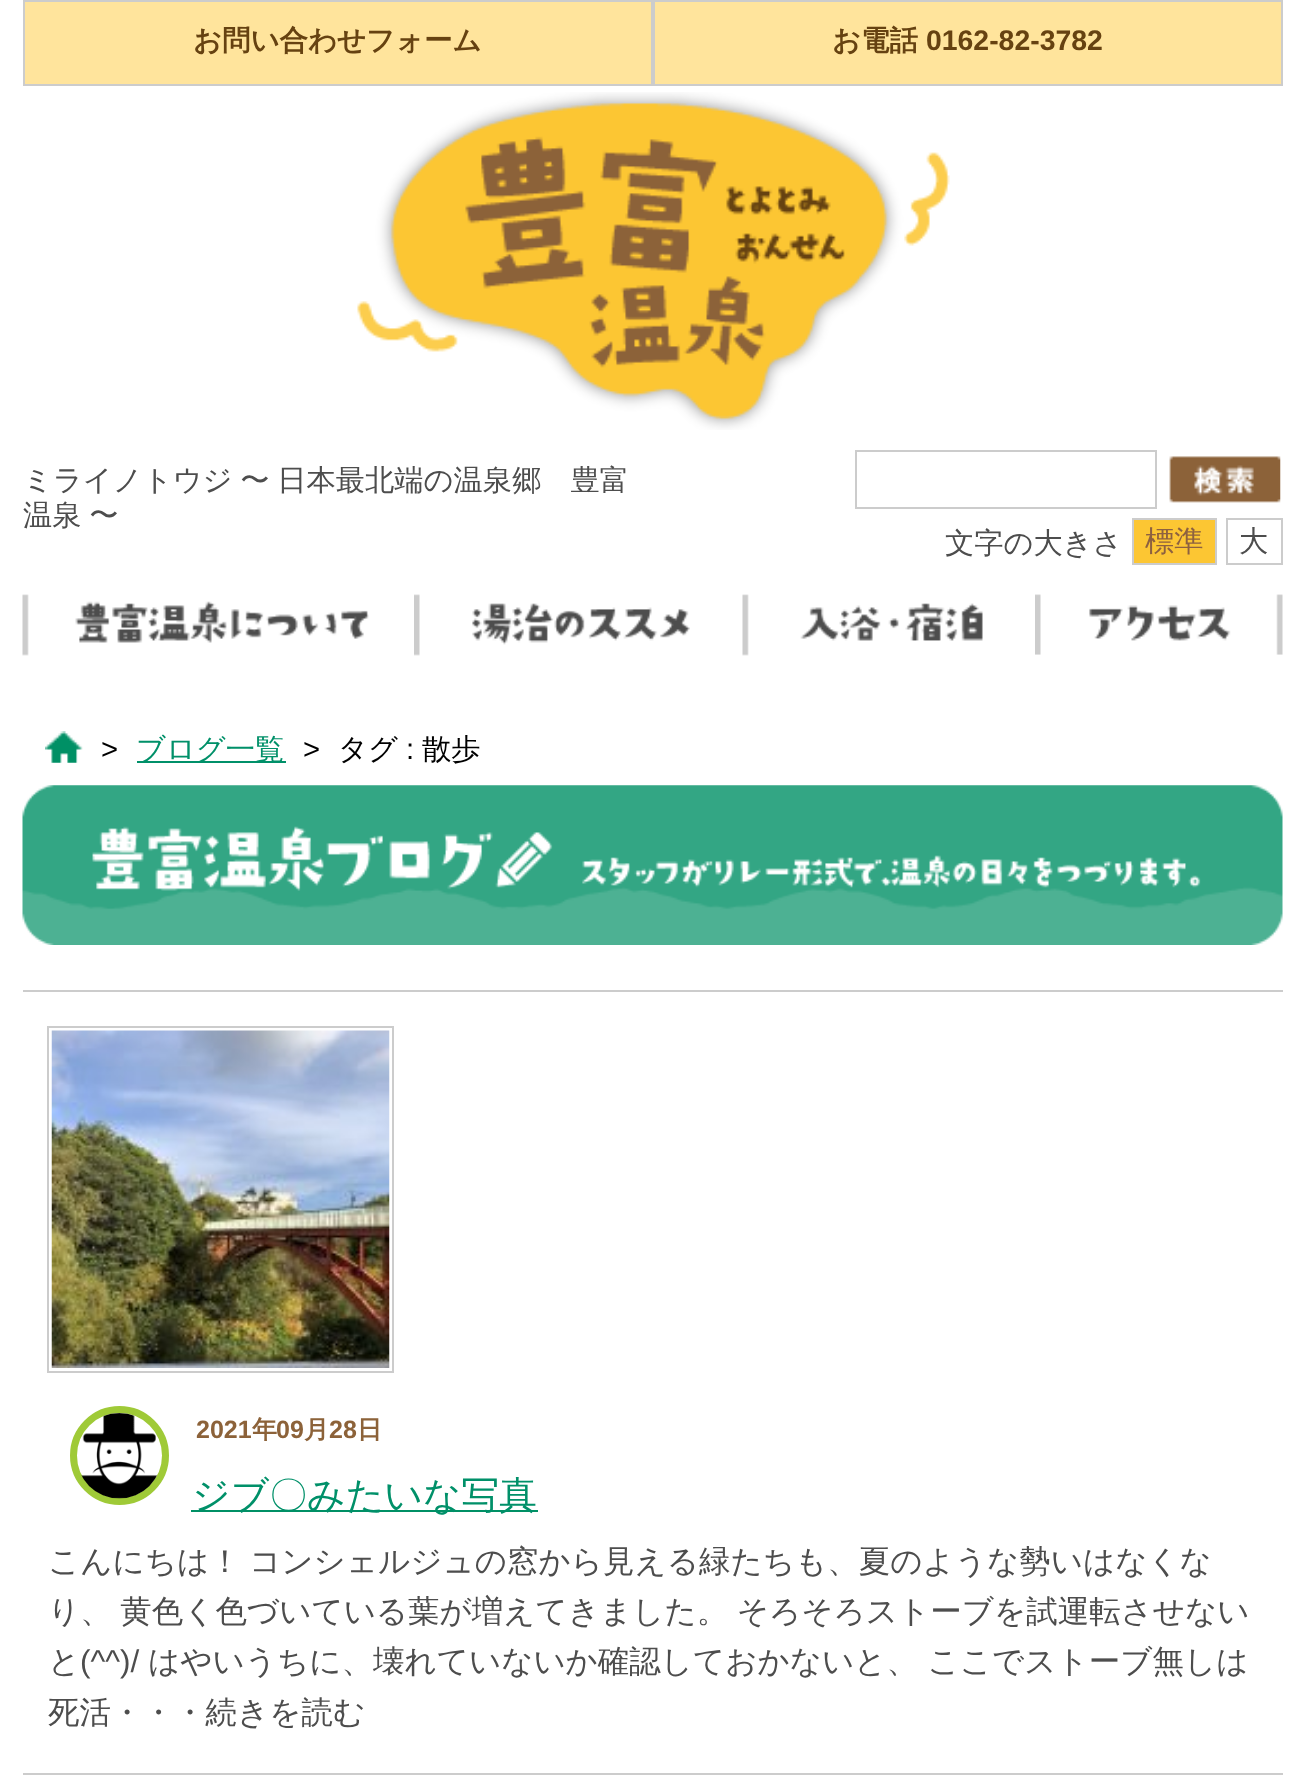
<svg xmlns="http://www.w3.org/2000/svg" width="1305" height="1788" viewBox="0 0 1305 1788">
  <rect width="100%" height="100%" fill="#fff"/>
  <path d="M24 1h628v84H24z" fill="#ffe49c" stroke="#ccc" stroke-width="2"/>
  <path d="M654 1h628v84H654z" fill="#ffe49c" stroke="#ccc" stroke-width="2"/>
  <image x="357" y="92" width="593" height="338" href="img/1.png"/>
  <path d="M856 451h300v57H856z" fill="none" stroke="#ccc" stroke-width="2"/>
  <image x="1169" y="456" width="112" height="47" href="img/2.png"/>
  <path d="M1133 519h83v45H1133z" fill="#fcc633" stroke="#ccc" stroke-width="2"/>
  <path d="M1227 519h55v45H1227z" fill="none" stroke="#ccc" stroke-width="2"/>
  <image x="22" y="594" width="347" height="62" href="img/3.png"/>
  <image x="414" y="594" width="276" height="62" href="img/4.png"/>
  <image x="742" y="594" width="241" height="62" href="img/5.png"/>
  <image x="1035" y="594" width="248" height="61" href="img/6.png"/>
  <image x="45" y="731" width="38" height="32" href="img/7.png"/>
  <path d="M137 761h149v2H137z" fill="#009069"/>
  <image x="22" y="785" width="1261" height="160" href="img/8.png"/>
  <path d="M23 990h1260v2H23z" fill="#ccc"/>
  <path d="M23 1773h1260v2H23z" fill="#ccc"/>
  <path d="M48 1027h345v345H48z" fill="none" stroke="#ccc" stroke-width="2"/>
  <image x="51" y="1030" width="339" height="338" href="img/9.png"/>
  <circle cx="119.5" cy="1455.5" r="46" fill="none" stroke="#9fca37" stroke-width="7"/>
  <image x="81" y="1413" width="76" height="86" href="img/10.png"/>
  <path d="M191 1510h347v2H191z" fill="#009065"/>
  <g font-family="WenQuanYi Zen Hei" font-size="28.4" font-weight="bold" fill="#664211">
    <text x="193" y="50">お問い合わせフォーム</text>
    <text x="832" y="50">お電話</text>
  </g>
  <text x="926" y="50" font-family="Liberation Sans" font-size="28.4" font-weight="bold" fill="#664211">0162-82-3782</text>
  <g font-family="WenQuanYi Zen Hei" font-size="29.25" font-weight="500" fill="#4d4d4d">
    <text x="23" y="490" word-spacing="-1">ミライノトウジ 〜 日本最北端の温泉郷　豊富</text>
    <text x="23" y="525" word-spacing="-1">温泉 〜</text>
    <text x="945" y="553">文字の大きさ</text>
  </g>
  <text x="1145" y="551" font-family="WenQuanYi Zen Hei" font-size="29.25" font-weight="500" fill="#8d6140">標準</text>
  <text x="1239" y="551" font-family="WenQuanYi Zen Hei" font-size="29.25" font-weight="500" fill="#4d4d4d">大</text>
  <text x="101" y="759" font-family="Liberation Sans" font-size="29.25" fill="#000">&gt;</text>
  <text x="136" y="759" font-family="WenQuanYi Zen Hei" font-size="29.25" font-weight="500" fill="#009069">ブログ一覧</text>
  <text x="303" y="759" font-family="Liberation Sans" font-size="29.25" fill="#000">&gt;</text>
  <text x="338" y="759" font-family="WenQuanYi Zen Hei" font-size="29.25" font-weight="500" fill="#000">タグ</text>
  <text x="406" y="759" font-family="Liberation Sans" font-size="29.25" fill="#000">:</text>
  <text x="422" y="759" font-family="WenQuanYi Zen Hei" font-size="29.25" font-weight="500" fill="#000">散歩</text>
  <text x="196" y="1438" font-family="Liberation Sans" font-size="25" font-weight="bold" fill="#8c6239">2021</text>
  <text x="252" y="1438" font-family="WenQuanYi Zen Hei" font-size="25" font-weight="bold" fill="#8c6239">年</text>
  <text x="276" y="1438" font-family="Liberation Sans" font-size="25" font-weight="bold" fill="#8c6239">09</text>
  <text x="304" y="1438" font-family="WenQuanYi Zen Hei" font-size="25" font-weight="bold" fill="#8c6239">月</text>
  <text x="329" y="1438" font-family="Liberation Sans" font-size="25" font-weight="bold" fill="#8c6239">28</text>
  <text x="357" y="1438" font-family="WenQuanYi Zen Hei" font-size="25" font-weight="bold" fill="#8c6239">日</text>
  <text x="192" y="1508" font-family="WenQuanYi Zen Hei" font-size="37.75" font-weight="500" fill="#009069">ジブ〇みたいな写真</text>
  <g font-family="WenQuanYi Zen Hei" font-size="31.5" font-weight="500" fill="#4d4d4d">
    <text x="48" y="1572" word-spacing="-1">こんにちは！ コンシェルジュの窓から見える緑たちも、夏のような勢いはなくな</text>
    <text x="48" y="1622" word-spacing="-1">り、 黄色く色づいている葉が増えてきました。 そろそろストーブを試運転させない</text>
    <text x="48" y="1672">と</text>
  </g>
  <text x="80" y="1672" font-family="Liberation Sans" font-size="31.5" fill="#4d4d4d">(^^)/</text>
  <g font-family="WenQuanYi Zen Hei" font-size="31.5" font-weight="500" fill="#4d4d4d">
    <text x="148" y="1672">はやいうちに、壊れていないか確認しておかないと、 ここでストーブ無しは</text>
    <text x="48" y="1723">死活・・・続きを読む</text>
  </g>
</svg>
